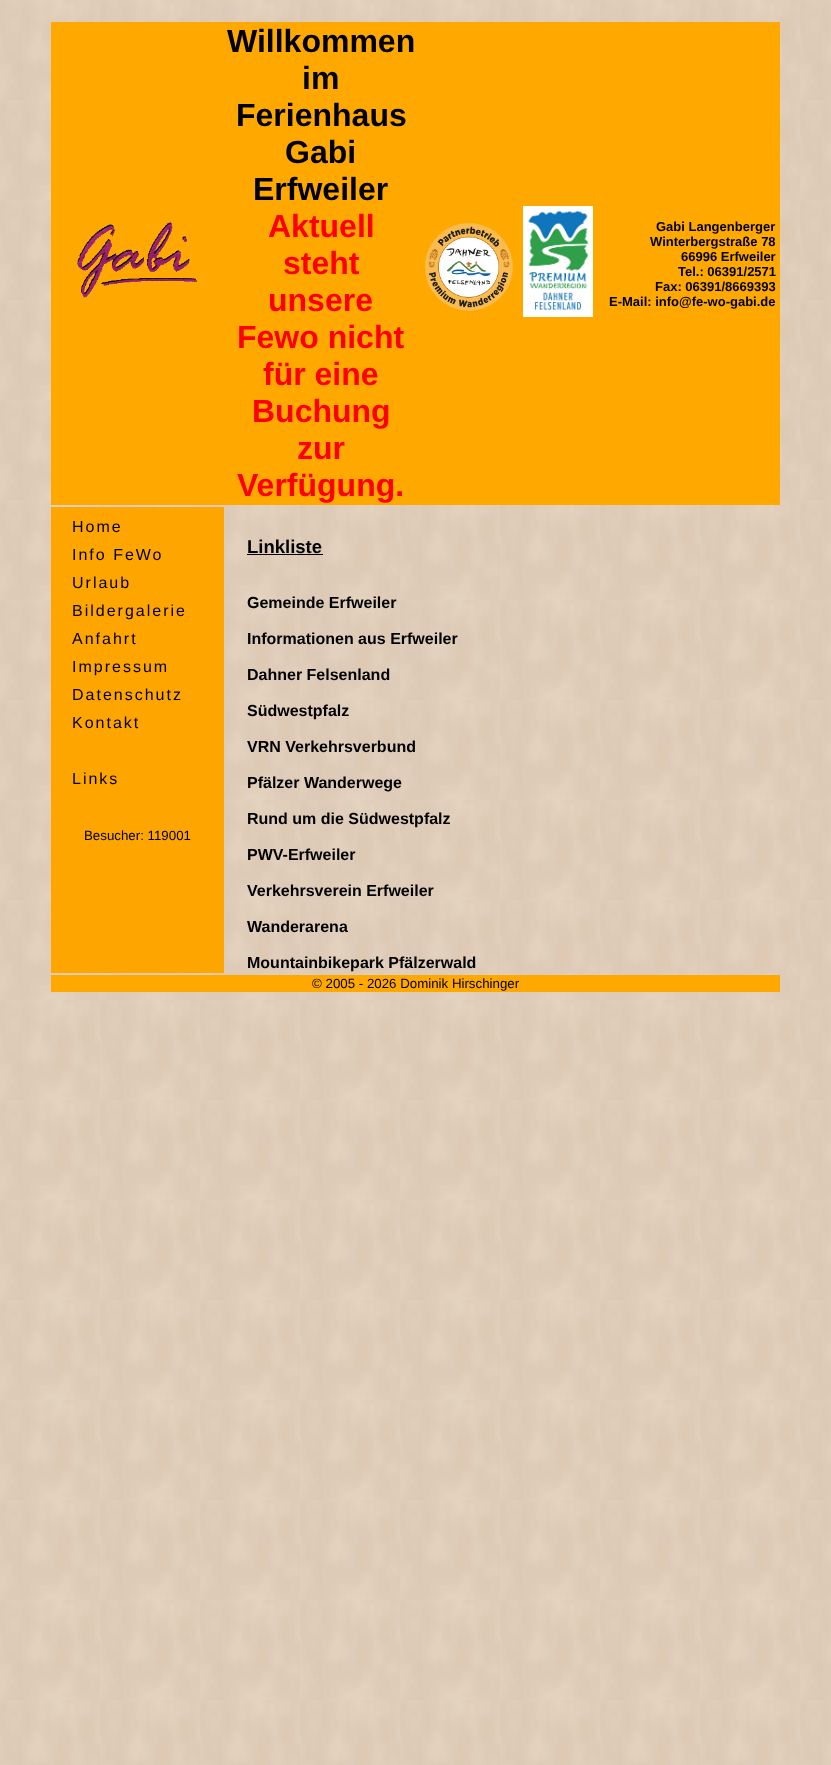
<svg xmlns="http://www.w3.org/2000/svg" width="831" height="1765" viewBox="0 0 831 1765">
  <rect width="100%" height="100%" fill="#fff"/>
  <image x="0" y="0" width="831" height="1765" href="img/1.png"/>
  <path d="M51 22h729v483H51z" fill="#ffa800"/>
  <image x="77" y="222" width="120" height="76" href="img/2.png"/>
  <image x="425" y="223" width="88" height="88" href="img/3.png"/>
  <image x="523" y="206" width="70" height="111" href="img/4.png"/>
  <path d="M51 507h173v466H51z" fill="#ffa500"/>
  <path d="M247 554h76v1H247z" fill="#000"/>
  <path d="M51 975h729v17H51z" fill="#ffa800"/>
  <g font-family="Liberation Sans" font-size="32" font-weight="bold" fill="#000">
    <text x="227" y="52">Willkommen</text>
    <text x="302" y="89">im</text>
    <text x="236" y="126">Ferienhaus</text>
    <text x="285" y="163">Gabi</text>
    <text x="253" y="200">Erfweiler</text>
  </g>
  <g font-family="Liberation Sans" font-size="32" font-weight="bold" fill="#f00">
    <text x="268" y="237">Aktuell</text>
    <text x="283" y="274">steht</text>
    <text x="268" y="311">unsere</text>
    <text x="237" y="348">Fewo nicht</text>
    <text x="263" y="385">für eine</text>
    <text x="252" y="422">Buchung</text>
    <text x="297" y="459">zur</text>
    <text x="237" y="496">Verfügung.</text>
  </g>
  <g font-family="Liberation Sans" font-size="13" font-weight="bold" fill="#000">
    <text x="656" y="231">Gabi Langenberger</text>
    <text x="650" y="246">Winterbergstraße 78</text>
    <text x="681" y="261">66996 Erfweiler</text>
    <text x="678" y="276">Tel.: 06391/2571</text>
    <text x="655" y="291">Fax: 06391/8669393</text>
    <text x="609" y="306">E-Mail: info@fe-wo-gabi.de</text>
  </g>
  <g font-family="Liberation Sans" font-size="16" letter-spacing="2" fill="#000">
    <text x="72" y="532">Home</text>
    <text x="72" y="560">Info FeWo</text>
    <text x="72" y="588">Urlaub</text>
    <text x="72" y="616">Bildergalerie</text>
    <text x="72" y="644">Anfahrt</text>
    <text x="72" y="672">Impressum</text>
    <text x="72" y="700">Datenschutz</text>
    <text x="72" y="728">Kontakt</text>
    <text x="72" y="784">Links</text>
  </g>
  <text x="84" y="840" font-family="Liberation Sans" font-size="13.3" fill="#000">Besucher: 119001</text>
  <text x="247" y="553" font-family="Liberation Sans" font-size="18.5" font-weight="bold" fill="#000">Linkliste</text>
  <g font-family="Liberation Sans" font-size="16" font-weight="bold" fill="#000">
    <text x="247" y="608">Gemeinde Erfweiler</text>
    <text x="247" y="644">Informationen aus Erfweiler</text>
    <text x="247" y="680">Dahner Felsenland</text>
    <text x="247" y="716">Südwestpfalz</text>
    <text x="247" y="752">VRN Verkehrsverbund</text>
    <text x="247" y="788">Pfälzer Wanderwege</text>
    <text x="247" y="824">Rund um die Südwestpfalz</text>
    <text x="247" y="860">PWV-Erfweiler</text>
    <text x="247" y="896">Verkehrsverein Erfweiler</text>
    <text x="247" y="932">Wanderarena</text>
    <text x="247" y="968">Mountainbikepark Pfälzerwald</text>
  </g>
  <text x="312" y="988" font-family="Liberation Sans" font-size="13.3" fill="#000">© 2005 - 2026 Dominik Hirschinger</text>
</svg>
